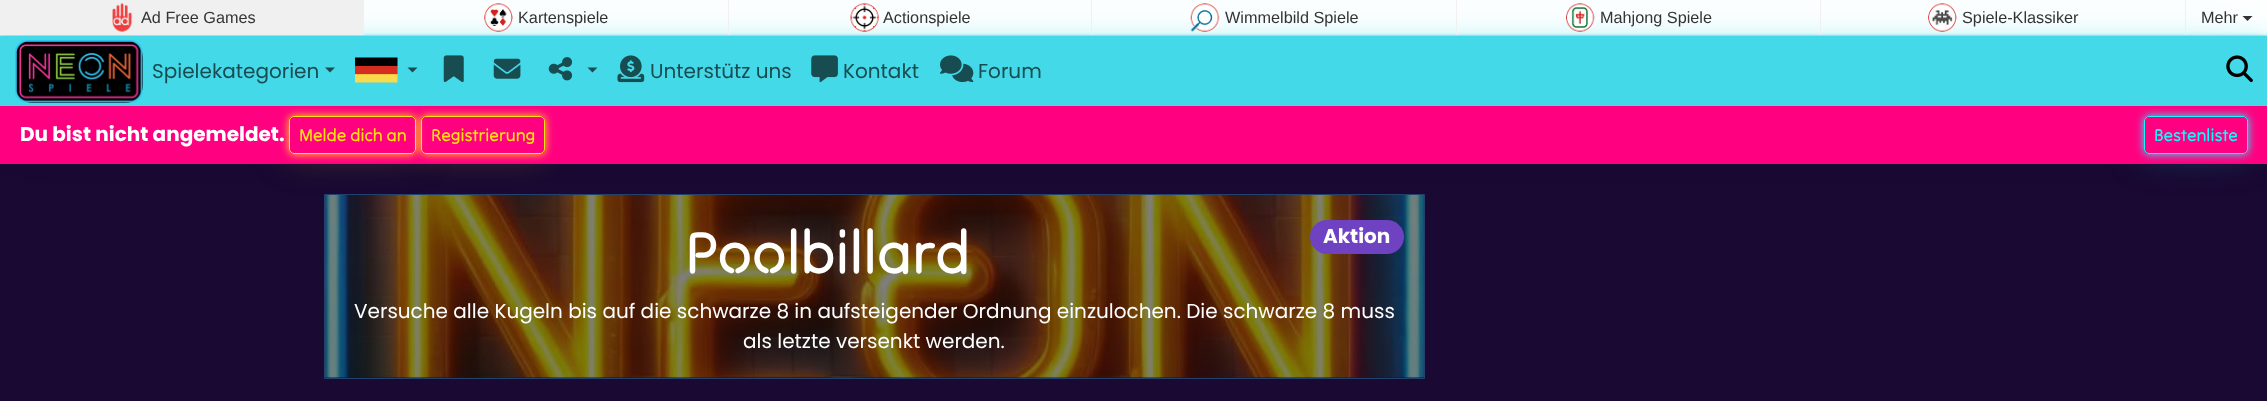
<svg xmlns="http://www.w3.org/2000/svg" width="2267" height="401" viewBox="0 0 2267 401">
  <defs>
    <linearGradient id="g1" gradientUnits="userSpaceOnUse" x1="1134" y1="0" x2="1134" y2="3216"><stop offset="0" stop-color="#17082e"/><stop offset="0.07" stop-color="#1a0933"/><stop offset="0.8" stop-color="#1a0933"/><stop offset="1" stop-color="#0c1f4c"/></linearGradient>
    <clipPath id="clip1"><path d="M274 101H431V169H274ZM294 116H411C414 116 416 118 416 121V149C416 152 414 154 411 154H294C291 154 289 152 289 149V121C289 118 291 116 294 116Z" clip-rule="evenodd"/></clipPath>
    <clipPath id="clip2"><path d="M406 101H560V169H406ZM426 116H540C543 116 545 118 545 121V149C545 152 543 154 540 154H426C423 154 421 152 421 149V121C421 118 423 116 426 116Z" clip-rule="evenodd"/></clipPath>
    <clipPath id="clip3"><path d="M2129 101H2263V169H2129ZM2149 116H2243C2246 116 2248 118 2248 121V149C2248 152 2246 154 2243 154H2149C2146 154 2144 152 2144 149V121C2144 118 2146 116 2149 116Z" clip-rule="evenodd"/></clipPath>
  </defs>
  <rect width="100%" height="100%" fill="#fff"/>
  <path d="M0 164h2267v237H0z" fill="url(#g1)"/>
  <path d="M0 35h2267v1H0z" fill="#f0f0f0"/>
  <path d="M290 118h125v35H290z" fill="#523f28" filter="blur(17.5px)"/>
  <path d="M423 118h121v35H423z" fill="#ffe20d40" filter="blur(17.5px)"/>
  <image x="325" y="195" width="1099" height="183" href="img/16.png"/>
  <path d="M0 36h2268v70H0z" fill="#44d9e81a" filter="blur(40px)"/>
  <path d="M0 36h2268v70H0z" fill="#44d9e84d" filter="blur(10px)"/>
  <path d="M0 36h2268v70H0z" fill="#44d9e866" filter="blur(2.5px)"/>
  <path d="M0 36h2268v70H0z" fill="#44d9e8e6" filter="blur(1px)"/>
  <path d="M0 0h364v35H0z" fill="#f0f0f0"/>
  <image x="112" y="3" width="21" height="29" href="img/1.png"/>
  <image x="484" y="3" width="29" height="29" href="img/2.png"/>
  <path d="M728 0h1v35H728z" fill="#f0f0f0"/>
  <image x="850" y="3" width="29" height="29" href="img/3.png"/>
  <path d="M1091 0h1v35H1091z" fill="#f0f0f0"/>
  <image x="1190" y="3" width="30" height="29" href="img/4.png"/>
  <path d="M1456 0h1v35H1456z" fill="#f0f0f0"/>
  <image x="1566" y="3" width="29" height="29" href="img/5.png"/>
  <path d="M1820 0h1v35H1820z" fill="#f0f0f0"/>
  <image x="1928" y="3" width="29" height="29" href="img/6.png"/>
  <path d="M2185 0h1v35H2185z" fill="#f0f0f0"/>
  <path d="M2242.5 16H2252.5L2247.5 21Z" fill="#333"/>
  <path d="M2145 118h101v35H2145z" fill="#174465" filter="blur(17.5px)"/>
  <path d="M0 36h2267v70H0z" fill="#44d9e8"/>
  <rect x="15" y="40" width="128" height="63" rx="18" fill="#000"/>
  <image x="15" y="40" width="128" height="63" href="img/7.png"/>
  <path d="M325 67.5H335L330 72.5Z" fill="#184c51"/>
  <image x="355" y="57" width="43" height="26" href="img/8.png"/>
  <path d="M407.5 67.5H417.5L412.5 72.5Z" fill="#184c51"/>
  <image x="443" y="55" width="21" height="27" href="img/9.png"/>
  <image x="493" y="58" width="28" height="21" href="img/10.png"/>
  <image x="548" y="57" width="25" height="24" href="img/11.png"/>
  <path d="M587.5 67.5H597.5L592.5 72.5Z" fill="#184c51"/>
  <image x="617" y="55" width="28" height="28" href="img/12.png"/>
  <image x="811" y="55" width="27" height="27" href="img/13.png"/>
  <image x="940" y="55" width="34" height="28" href="img/14.png"/>
  <image x="2226" y="55" width="27" height="28" href="img/15.png"/>
  <path d="M0 106h2267v58H0z" fill="#ff0080"/>
  <g clip-path="url(#clip1)">
    <rect x="289" y="116" width="127" height="38" rx="5" fill="#ffe20d" filter="blur(4.5px)"/>
  </g>
  <rect x="289.5" y="116.5" width="126" height="37" rx="4.5" fill="none" stroke="#ffe20d"/>
  <g clip-path="url(#clip2)">
    <rect x="421" y="116" width="124" height="38" rx="5" fill="#ffe20d" filter="blur(4.5px)"/>
  </g>
  <rect x="421.5" y="116.5" width="123" height="37" rx="4.5" fill="none" stroke="#ffe20d"/>
  <g clip-path="url(#clip3)">
    <rect x="2144" y="116" width="104" height="38" rx="5" fill="#14f7ff" filter="blur(4.5px)"/>
  </g>
  <rect x="2144.5" y="116.5" width="103" height="37" rx="4.5" fill="none" stroke="#14f7ff"/>
  <path d="M324.5 194.5h1100v184H324.5z" fill="none" stroke="#22426d"/>
  <rect x="1310" y="220" width="94" height="34" rx="17" fill="#6f42c1"/>
  <g font-family="Liberation Sans" font-size="16.25" fill="#333">
    <text x="141" y="23">Ad Free Games</text>
    <text x="518" y="23">Kartenspiele</text>
    <text x="883" y="23">Actionspiele</text>
    <text x="1225" y="23">Wimmelbild Spiele</text>
    <text x="1600" y="23">Mahjong Spiele</text>
    <text x="1962" y="23">Spiele-Klassiker</text>
    <text x="2201" y="23">Mehr</text>
  </g>
  <g font-family="Poppins" font-size="20" fill="#184c51">
    <text x="152" y="78">Spielekategorien</text>
    <text x="650" y="78">Unterstütz uns</text>
    <text x="843" y="78">Kontakt</text>
    <text x="978" y="78">Forum</text>
  </g>
  <text x="20" y="141" font-family="Poppins" font-size="20" font-weight="bold" fill="#fff">Du bist nicht angemeldet.</text>
  <g font-family="Tilt Neon" font-size="17.5" fill="#ffe20d">
    <text x="299" y="141">Melde dich an</text>
    <text x="431" y="141">Registrierung</text>
  </g>
  <text x="2154" y="141" font-family="Tilt Neon" font-size="17.5" fill="#14f7ff">Bestenliste</text>
  <text x="685" y="273" font-family="Tilt Neon" font-size="60" fill="#fff">Poolbillard</text>
  <text x="1323" y="243" font-family="Poppins" font-size="20" font-weight="bold" fill="#fff">Aktion</text>
  <g font-family="Poppins" font-size="20" fill="#fff">
    <text x="354" y="318">Versuche alle Kugeln bis auf die schwarze 8 in aufsteigender Ordnung einzulochen. Die schwarze 8 muss</text>
    <text x="743" y="348">als letzte versenkt werden.</text>
  </g>
</svg>
